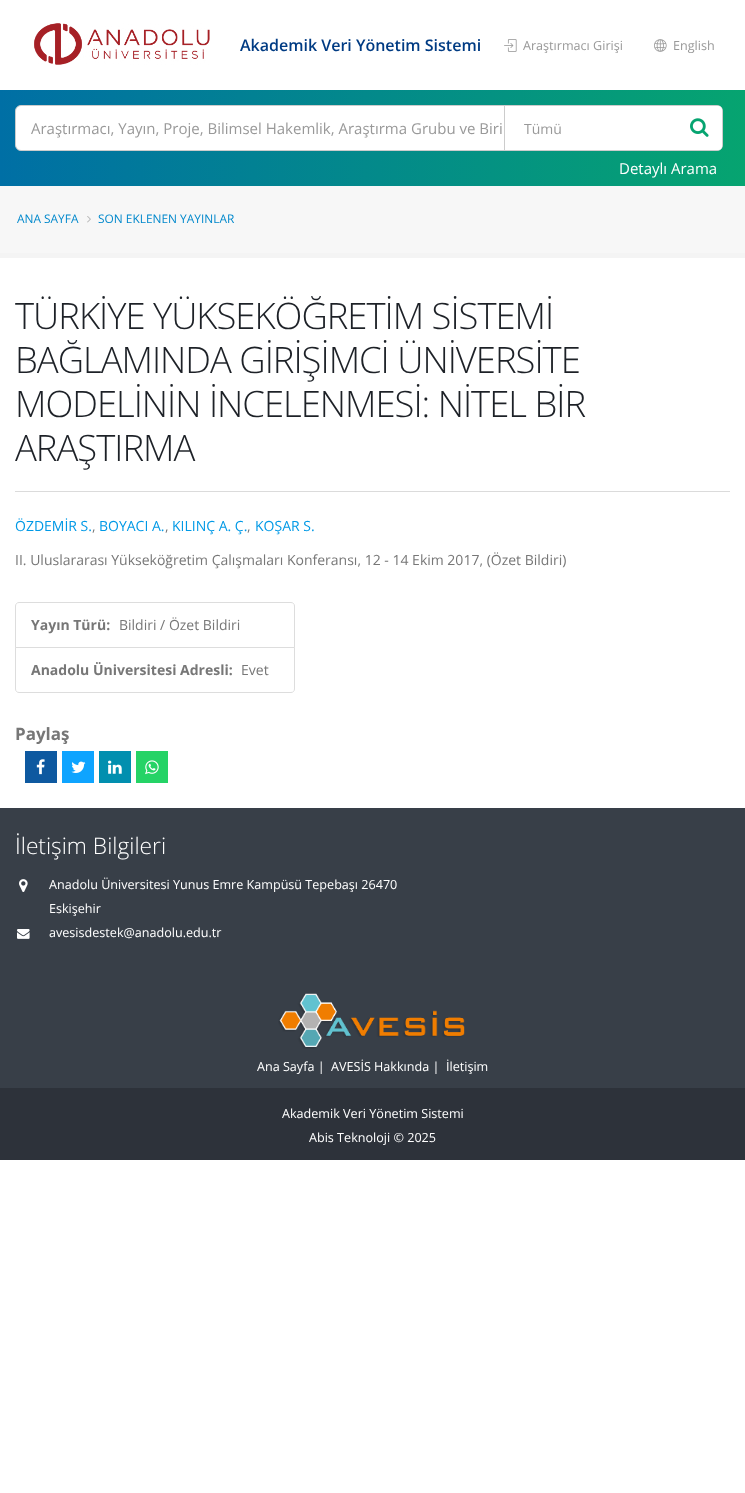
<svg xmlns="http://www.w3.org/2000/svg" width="745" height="1493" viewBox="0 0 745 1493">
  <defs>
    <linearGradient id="g1" gradientUnits="userSpaceOnUse" x1="0" y1="138" x2="745" y2="138"><stop offset="0" stop-color="#006fa5"/><stop offset="1" stop-color="#06a470"/></linearGradient>
  </defs>
  <rect width="100%" height="100%" fill="#fff"/>
  <image x="34" y="23" width="176" height="42" href="img/1.png"/>
  <image x="504" y="39" width="13" height="13" href="img/2.png"/>
  <image x="654" y="39" width="13" height="13" href="img/3.png"/>
  <path d="M0 90h745v96H0z" fill="url(#g1)"/>
  <rect x="15.5" y="105.5" width="707" height="45" rx="5.5" fill="#fff" stroke="#ccc"/>
  <path d="M504.5 105.5h189v45H504.5z" fill="none" stroke="#ccc"/>
  <rect x="677" y="106" width="45" height="44" rx="4" fill="#fff"/>
  <image x="690" y="118" width="19" height="19" href="img/4.png"/>
  <path d="M0 186h745v67H0z" fill="#f7f7f7"/>
  <path d="M0 253h745v5H0z" fill="#f4f4f4"/>
  <image x="87" y="216" width="4" height="7" href="img/5.png"/>
  <path d="M15 491h715v1H15z" fill="#dbdbdb"/>
  <path d="M19 602.5H291C293 602.5 294.5 604 294.5 606V647.5H15.5V606C15.5 604 17 602.5 19 602.5Z" fill="none" stroke="#ddd"/>
  <path d="M15.5 647.5H294.5V689C294.5 691 293 692.5 291 692.5H19C17 692.5 15.5 691 15.5 689Z" fill="#fff" stroke="#ddd"/>
  <path d="M25 751h32v32H25z" fill="#0e59a0"/>
  <image x="36" y="759" width="9" height="16" href="img/6.png"/>
  <path d="M62 751h32v32H62z" fill="#0ea4ff"/>
  <image x="71" y="761" width="15" height="12" href="img/7.png"/>
  <path d="M99 751h32v32H99z" fill="#018faf"/>
  <image x="108" y="760" width="14" height="14" href="img/8.png"/>
  <path d="M136 751h32v32H136z" fill="#25d366"/>
  <image x="145" y="760" width="14" height="15" href="img/9.png"/>
  <path d="M0 808h745v280H0z" fill="#383f48"/>
  <image x="19" y="879" width="9" height="13" href="img/10.png"/>
  <image x="17" y="929" width="13" height="10" href="img/11.png"/>
  <image x="278" y="993" width="187" height="56" href="img/12.png"/>
  <path d="M0 1088h745v72H0z" fill="#2d323a"/>
  <text x="240" y="51" font-family="Open Sans" font-size="16" font-weight="600" fill="#003b83">Akademik Veri Yönetim Sistemi</text>
  <g font-family="Open Sans" font-size="12.6" fill="#999">
    <text x="523" y="50">Araştırmacı Girişi</text>
    <text x="673" y="50">English</text>
  </g>
  <text x="31" y="134" font-family="Open Sans" font-size="15" fill="#999">Araştırmacı, Yayın, Proje, Bilimsel Hakemlik, Araştırma Grubu ve Biri</text>
  <text x="524" y="134" font-family="Open Sans" font-size="14" fill="#999">Tümü</text>
  <text x="619" y="174" font-family="Open Sans" font-size="15" fill="#fff">Detaylı Arama</text>
  <g font-family="Open Sans" font-size="11.9" fill="#08c">
    <text x="17" y="223">ANA SAYFA</text>
    <text x="98" y="223">SON EKLENEN YAYINLAR</text>
  </g>
  <g font-family="Open Sans" font-size="36.4" font-weight="300" letter-spacing="-1" fill="#1d2127">
    <text x="15" y="329">TÜRKİYE YÜKSEKÖĞRETİM SİSTEMİ</text>
    <text x="15" y="373">BAĞLAMINDA GİRİŞİMCİ ÜNİVERSİTE</text>
    <text x="15" y="417">MODELİNİN İNCELENMESİ: NİTEL BİR</text>
    <text x="15" y="461">ARAŞTIRMA</text>
  </g>
  <text x="15" y="531" font-family="Open Sans" font-size="14" fill="#0099e6">ÖZDEMİR S.</text>
  <text x="92" y="531" font-family="Open Sans" font-size="14" fill="#777">,</text>
  <text x="99" y="531" font-family="Open Sans" font-size="14" fill="#0099e6">BOYACI A.</text>
  <text x="165" y="531" font-family="Open Sans" font-size="14" fill="#777">,</text>
  <text x="172" y="531" font-family="Open Sans" font-size="14" fill="#0099e6">KILINÇ A. Ç.</text>
  <text x="247" y="531" font-family="Open Sans" font-size="14" fill="#777">,</text>
  <text x="255" y="531" font-family="Open Sans" font-size="14" fill="#0099e6">KOŞAR S.</text>
  <text x="15" y="565" font-family="Open Sans" font-size="14" fill="#777">II. Uluslararası Yükseköğretim Çalışmaları Konferansı, 12 - 14 Ekim 2017, (Özet Bildiri)</text>
  <text x="31" y="630" font-family="Open Sans" font-size="14" font-weight="bold" fill="#777">Yayın Türü:</text>
  <text x="119" y="630" font-family="Open Sans" font-size="14" fill="#777">Bildiri / Özet Bildiri</text>
  <text x="31" y="675" font-family="Open Sans" font-size="14" font-weight="bold" fill="#777">Anadolu Üniversitesi Adresli:</text>
  <text x="241" y="675" font-family="Open Sans" font-size="14" fill="#777">Evet</text>
  <text x="15" y="740" font-family="Open Sans" font-size="17" font-weight="bold" fill="#777">Paylaş</text>
  <text x="15" y="854" font-family="Open Sans" font-size="22.75" font-weight="300" fill="#fff">İletişim Bilgileri</text>
  <g font-family="Open Sans" font-size="12.6" fill="#fff">
    <text x="49" y="889">Anadolu Üniversitesi Yunus Emre Kampüsü Tepebaşı 26470</text>
    <text x="49" y="913">Eskişehir</text>
    <text x="49" y="937">avesisdestek@anadolu.edu.tr</text>
    <text x="257" y="1071">Ana Sayfa |</text>
    <text x="331" y="1071">AVESİS Hakkında |</text>
    <text x="446" y="1071">İletişim</text>
    <text x="282" y="1118">Akademik Veri Yönetim Sistemi</text>
    <text x="309" y="1142">Abis Teknoloji © 2025</text>
  </g>
</svg>
